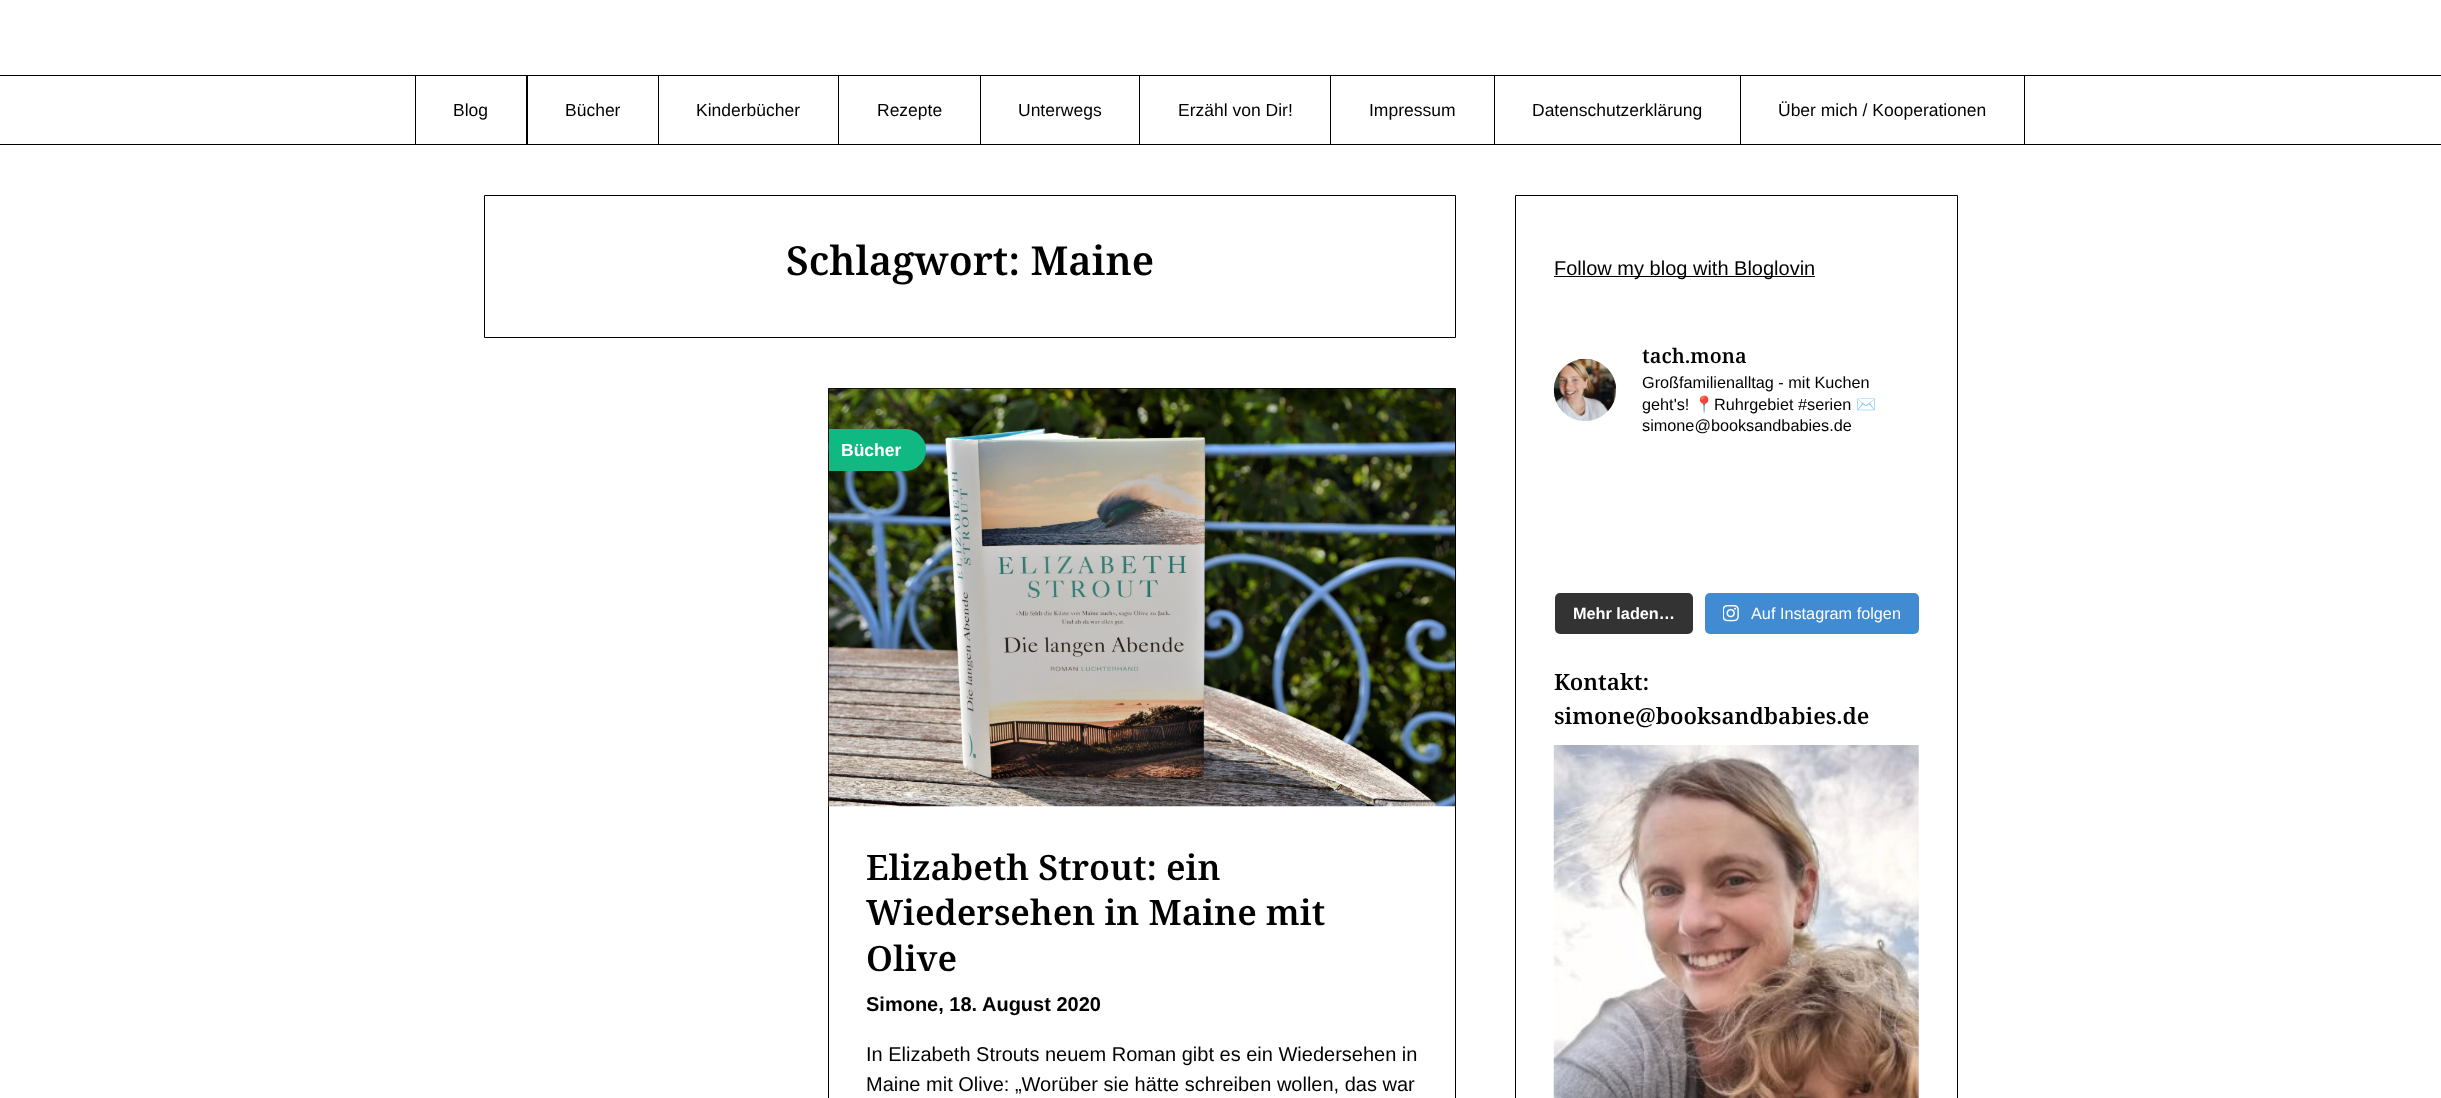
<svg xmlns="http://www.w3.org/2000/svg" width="2441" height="1098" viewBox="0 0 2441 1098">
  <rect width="100%" height="100%" fill="#fff"/>
  <path d="M0 144h2441v1H0z" fill="#000"/>
  <path d="M0 75h2441v1H0z" fill="#000"/>
  <path d="M415.5 75.5h112v69H415.5z" fill="none" stroke="#000"/>
  <path d="M526.5 75.5h132v69H526.5z" fill="none" stroke="#000"/>
  <path d="M658.5 75.5h180v69H658.5z" fill="none" stroke="#000"/>
  <path d="M838.5 75.5h142v69H838.5z" fill="none" stroke="#000"/>
  <path d="M980.5 75.5h159v69H980.5z" fill="none" stroke="#000"/>
  <path d="M1139.5 75.5h191v69H1139.5z" fill="none" stroke="#000"/>
  <path d="M1330.5 75.5h164v69H1330.5z" fill="none" stroke="#000"/>
  <path d="M1494.5 75.5h246v69H1494.5z" fill="none" stroke="#000"/>
  <path d="M1740.5 75.5h284v69H1740.5z" fill="none" stroke="#000"/>
  <path d="M484.5 195.5h971v142H484.5z" fill="none" stroke="#000"/>
  <path d="M828.5 388.5h627v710H828.5z" fill="none" stroke="#000"/>
  <image x="828" y="388" width="627" height="419" href="img/1.png"/>
  <path d="M829 429H905C916.5 429 926 438.5 926 450C926 461.5 916.5 471 905 471H829Z" fill="#10b981"/>
  <path d="M1515.5 195.5h442v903H1515.5z" fill="none" stroke="#000"/>
  <path d="M1554 276h261v1H1554z" fill="#000"/>
  <image x="1553" y="358" width="64" height="63" href="img/2.png"/>
  <rect x="1555" y="593" width="138" height="41" rx="5" fill="#333"/>
  <rect x="1705" y="593" width="214" height="41" rx="5" fill="#408bd1"/>
  <image x="1723" y="605" width="16" height="17" href="img/3.png"/>
  <image x="1553" y="745" width="366" height="353" href="img/4.png"/>
  <g font-family="Liberation Sans" font-size="17.5" fill="#000">
    <text x="453" y="116">Blog</text>
    <text x="565" y="116">Bücher</text>
    <text x="696" y="116">Kinderbücher</text>
    <text x="877" y="116">Rezepte</text>
    <text x="1018" y="116">Unterwegs</text>
    <text x="1178" y="116">Erzähl von Dir!</text>
    <text x="1369" y="116">Impressum</text>
    <text x="1532" y="116">Datenschutzerklärung</text>
    <text x="1778" y="116">Über mich / Kooperationen</text>
  </g>
  <text x="786" y="275" font-family="Noto Serif" font-size="40" font-weight="600" fill="#000">Schlagwort: Maine</text>
  <text x="841" y="456" font-family="Liberation Sans" font-size="17.5" font-weight="bold" fill="#fff">Bücher</text>
  <g font-family="Noto Serif" font-size="35" font-weight="600" fill="#000">
    <text x="866" y="880">Elizabeth Strout: ein</text>
    <text x="866" y="925">Wiedersehen in Maine mit</text>
    <text x="866" y="971">Olive</text>
  </g>
  <text x="866" y="1011" font-family="Liberation Sans" font-size="20" font-weight="bold" fill="#000">Simone, 18. August 2020</text>
  <g font-family="Liberation Sans" font-size="20" fill="#000">
    <text x="866" y="1061">In Elizabeth Strouts neuem Roman gibt es ein Wiedersehen in</text>
    <text x="866" y="1091">Maine mit Olive: „Worüber sie hätte schreiben wollen, das war</text>
    <text x="1554" y="275">Follow my blog with Bloglovin</text>
  </g>
  <text x="1642" y="363" font-family="Noto Serif" font-size="20" font-weight="600" fill="#000">tach.mona</text>
  <g font-family="Liberation Sans" font-size="16.25" fill="#000">
    <text x="1642" y="388">Großfamilienalltag - mit Kuchen</text>
    <text x="1642" y="410">geht's!</text>
  </g>
  <text x="1694" y="410" font-family="Noto Color Emoji" font-size="16.25" fill="#000">📍</text>
  <text x="1714" y="410" font-family="Liberation Sans" font-size="16.25" fill="#000">Ruhrgebiet #serien</text>
  <text x="1856" y="410" font-family="Noto Color Emoji" font-size="16.25" fill="#000">✉️</text>
  <text x="1642" y="431" font-family="Liberation Sans" font-size="16.25" fill="#000">simone@booksandbabies.de</text>
  <text x="1573" y="619" font-family="Liberation Sans" font-size="16.25" font-weight="bold" fill="#fff">Mehr laden…</text>
  <text x="1751" y="619" font-family="Liberation Sans" font-size="16.25" fill="#fff">Auf Instagram folgen</text>
  <g font-family="Noto Serif" font-size="22.5" font-weight="600" fill="#000">
    <text x="1554" y="690">Kontakt:</text>
    <text x="1554" y="724">simone@booksandbabies.de</text>
  </g>
</svg>
